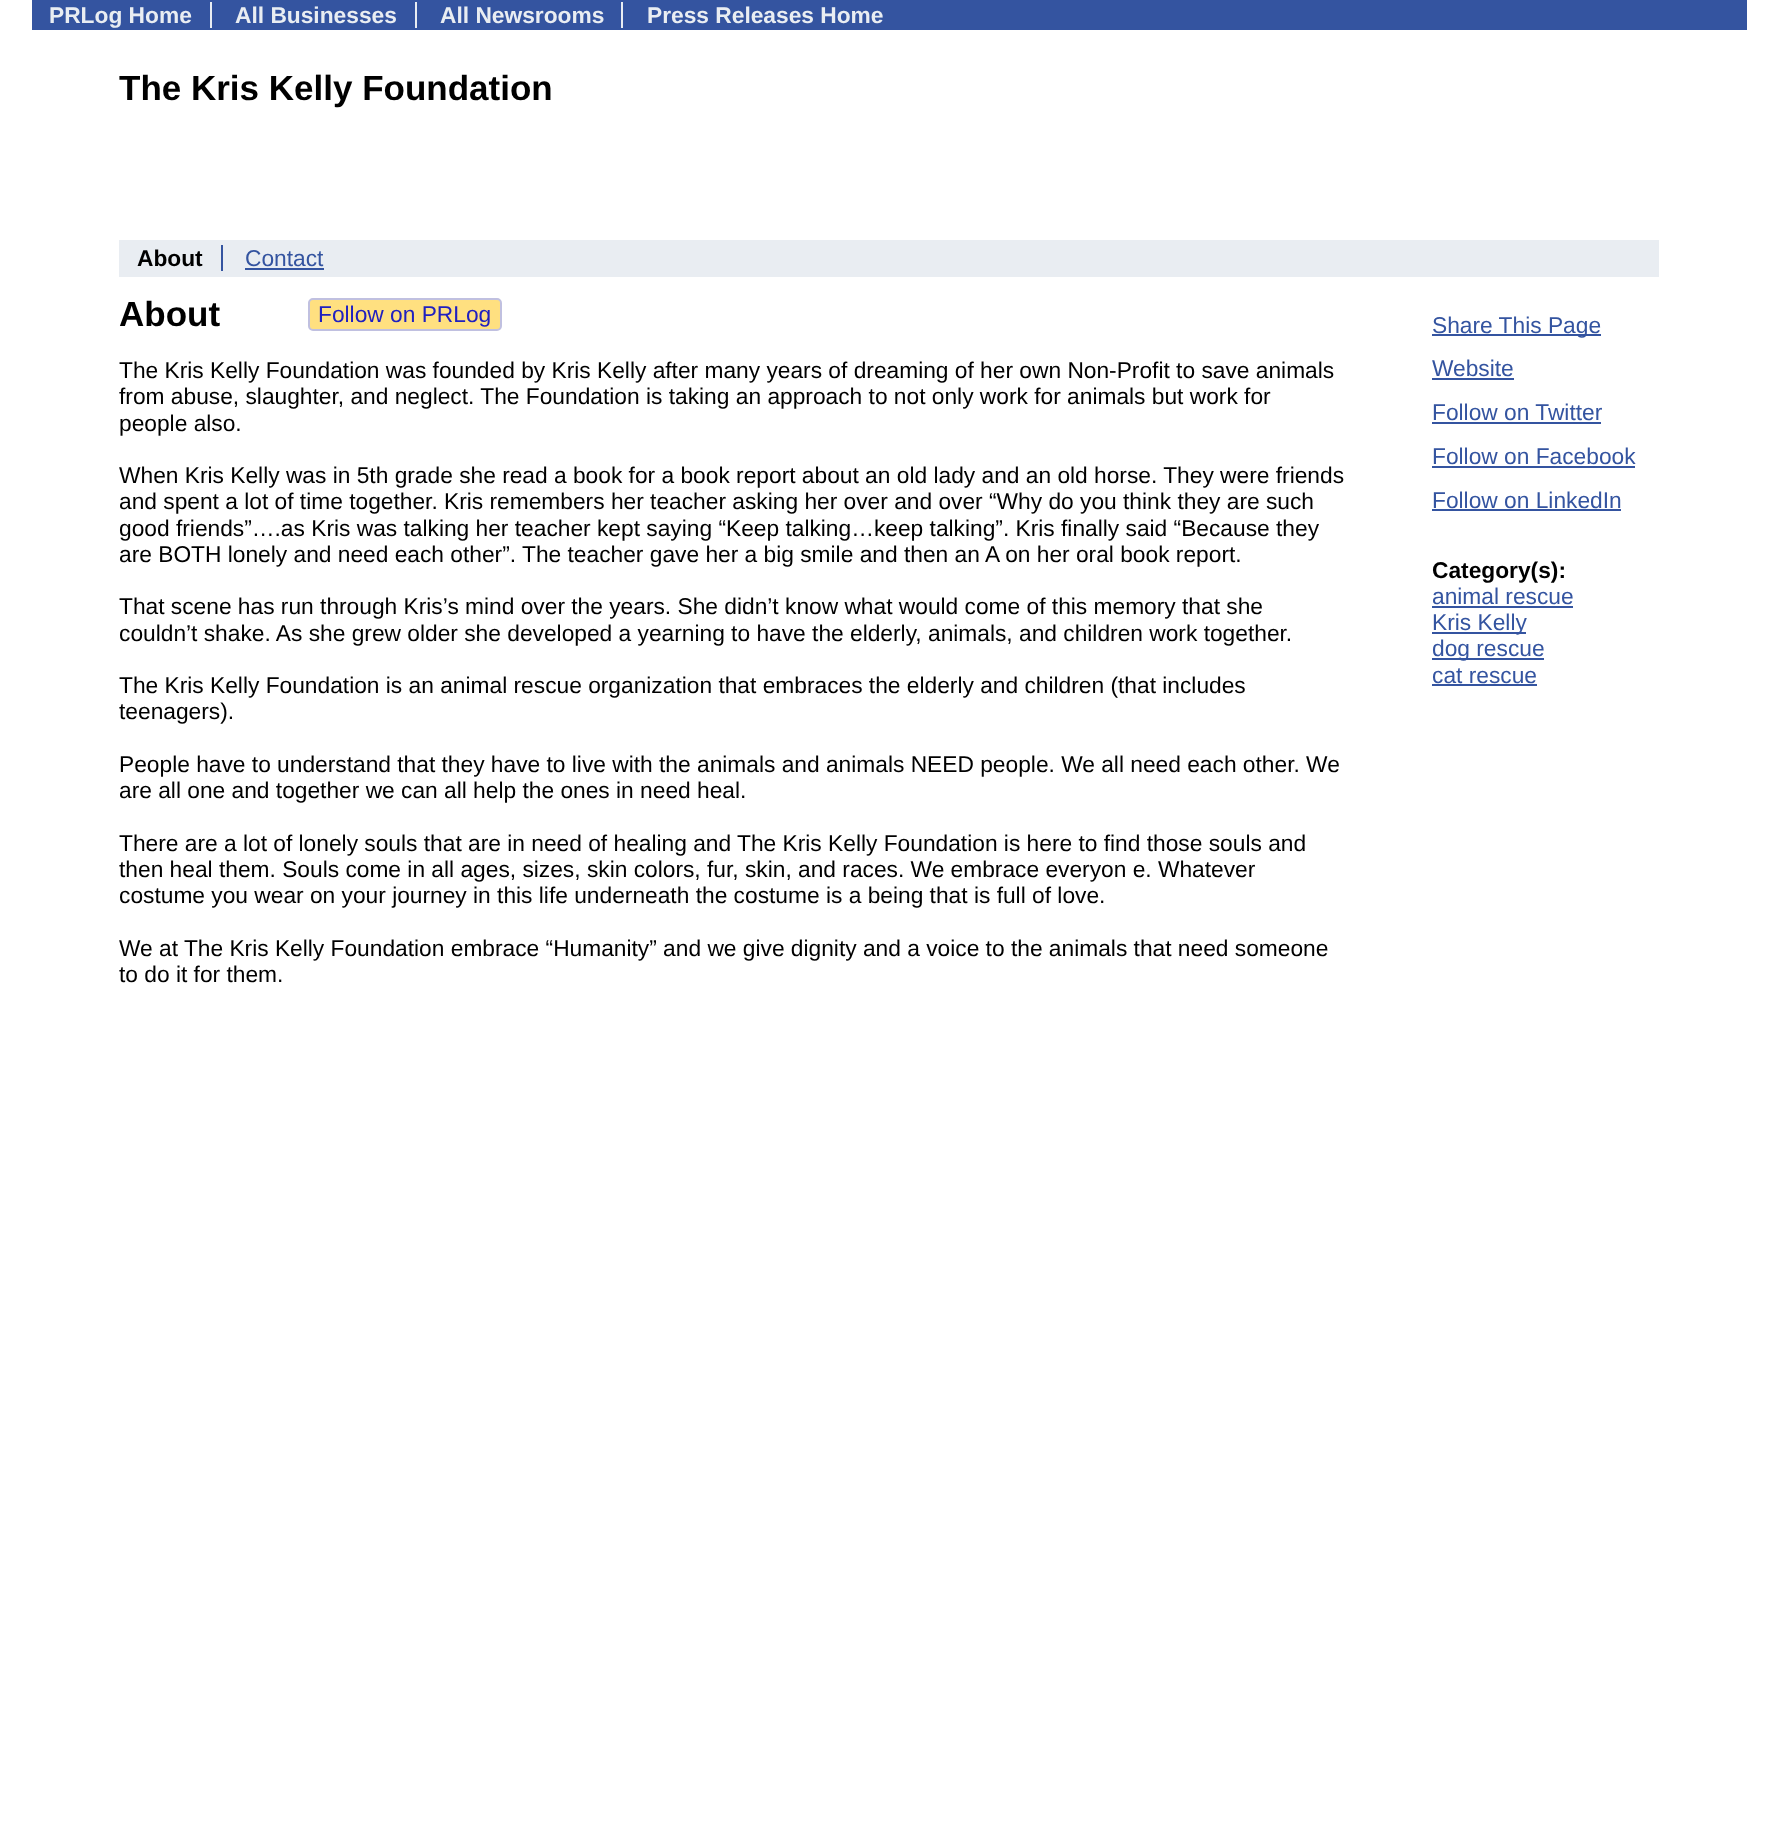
<svg xmlns="http://www.w3.org/2000/svg" width="1777" height="1838" viewBox="0 0 1777 1838">
  <rect width="100%" height="100%" fill="#fff"/>
  <path d="M32 0h1715v30H32z" fill="#3454a0"/>
  <path d="M210 2h2v26H210z" fill="#e9edf2"/>
  <path d="M415 2h2v26H415z" fill="#e9edf2"/>
  <path d="M621 2h2v26H621z" fill="#e9edf2"/>
  <path d="M119 240h1540v37H119z" fill="#e9edf2"/>
  <path d="M221 245h2v26H221z" fill="#3454a0"/>
  <path d="M245 268h79v2H245z" fill="#3454a0"/>
  <rect x="309" y="299" width="192" height="31" rx="4" fill="#ffe080" stroke="#c0c0e0" stroke-width="2"/>
  <path d="M1432 334h169v2H1432z" fill="#3454a0"/>
  <path d="M1432 378h82v2H1432z" fill="#3454a0"/>
  <path d="M1432 422h169v2H1432z" fill="#3454a0"/>
  <path d="M1432 466h203v2H1432z" fill="#3454a0"/>
  <path d="M1432 509h189v2H1432z" fill="#3454a0"/>
  <path d="M1432 606h141v2H1432z" fill="#3454a0"/>
  <path d="M1432 632h94v2H1432z" fill="#3454a0"/>
  <path d="M1432 658h112v2H1432z" fill="#3454a0"/>
  <path d="M1432 684h105v2H1432z" fill="#3454a0"/>
  <g font-family="Liberation Sans" font-size="22.75" font-weight="bold" fill="#e9edf2">
    <text x="49" y="23">PRLog Home</text>
    <text x="235" y="23">All Businesses</text>
    <text x="440" y="23">All Newsrooms</text>
    <text x="647" y="23">Press Releases Home</text>
  </g>
  <text x="119" y="100" font-family="Liberation Sans" font-size="35" font-weight="bold" fill="#000">The Kris Kelly Foundation</text>
  <text x="137" y="266" font-family="Liberation Sans" font-size="22.75" font-weight="bold" fill="#000">About</text>
  <text x="245" y="266" font-family="Liberation Sans" font-size="22.75" fill="#3454a0">Contact</text>
  <text x="119" y="326" font-family="Liberation Sans" font-size="35" font-weight="bold" fill="#000">About</text>
  <text x="318" y="322" font-family="Liberation Sans" font-size="22.75" fill="#2020c0">Follow on PRLog</text>
  <g font-family="Liberation Sans" font-size="22.75" fill="#000">
    <text x="119" y="378">The Kris Kelly Foundation was founded by Kris Kelly after many years of dreaming of her own Non-Profit to save animals</text>
    <text x="119" y="404">from abuse, slaughter, and neglect. The Foundation is taking an approach to not only work for animals but work for</text>
    <text x="119" y="431">people also.</text>
    <text x="119" y="483">When Kris Kelly was in 5th grade she read a book for a book report about an old lady and an old horse. They were friends</text>
    <text x="119" y="509">and spent a lot of time together. Kris remembers her teacher asking her over and over “Why do you think they are such</text>
    <text x="119" y="536">good friends”….as Kris was talking her teacher kept saying “Keep talking…keep talking”. Kris finally said “Because they</text>
    <text x="119" y="562">are BOTH lonely and need each other”. The teacher gave her a big smile and then an A on her oral book report.</text>
    <text x="119" y="614">That scene has run through Kris’s mind over the years. She didn’t know what would come of this memory that she</text>
    <text x="119" y="641">couldn’t shake. As she grew older she developed a yearning to have the elderly, animals, and children work together.</text>
    <text x="119" y="693">The Kris Kelly Foundation is an animal rescue organization that embraces the elderly and children (that includes</text>
    <text x="119" y="719">teenagers).</text>
    <text x="119" y="772">People have to understand that they have to live with the animals and animals NEED people. We all need each other. We</text>
    <text x="119" y="798">are all one and together we can all help the ones in need heal.</text>
    <text x="119" y="851">There are a lot of lonely souls that are in need of healing and The Kris Kelly Foundation is here to find those souls and</text>
    <text x="119" y="877">then heal them. Souls come in all ages, sizes, skin colors, fur, skin, and races. We embrace everyon e. Whatever</text>
    <text x="119" y="903">costume you wear on your journey in this life underneath the costume is a being that is full of love.</text>
    <text x="119" y="956">We at The Kris Kelly Foundation embrace “Humanity” and we give dignity and a voice to the animals that need someone</text>
    <text x="119" y="982">to do it for them.</text>
  </g>
  <g font-family="Liberation Sans" font-size="22.75" fill="#3454a0">
    <text x="1432" y="333">Share This Page</text>
    <text x="1432" y="376">Website</text>
    <text x="1432" y="420">Follow on Twitter</text>
    <text x="1432" y="464">Follow on Facebook</text>
    <text x="1432" y="508">Follow on LinkedIn</text>
  </g>
  <text x="1432" y="578" font-family="Liberation Sans" font-size="22.75" font-weight="bold" fill="#000">Category(s):</text>
  <g font-family="Liberation Sans" font-size="22.75" fill="#3454a0">
    <text x="1432" y="604">animal rescue</text>
    <text x="1432" y="630">Kris Kelly</text>
    <text x="1432" y="656">dog rescue</text>
    <text x="1432" y="683">cat rescue</text>
  </g>
</svg>
